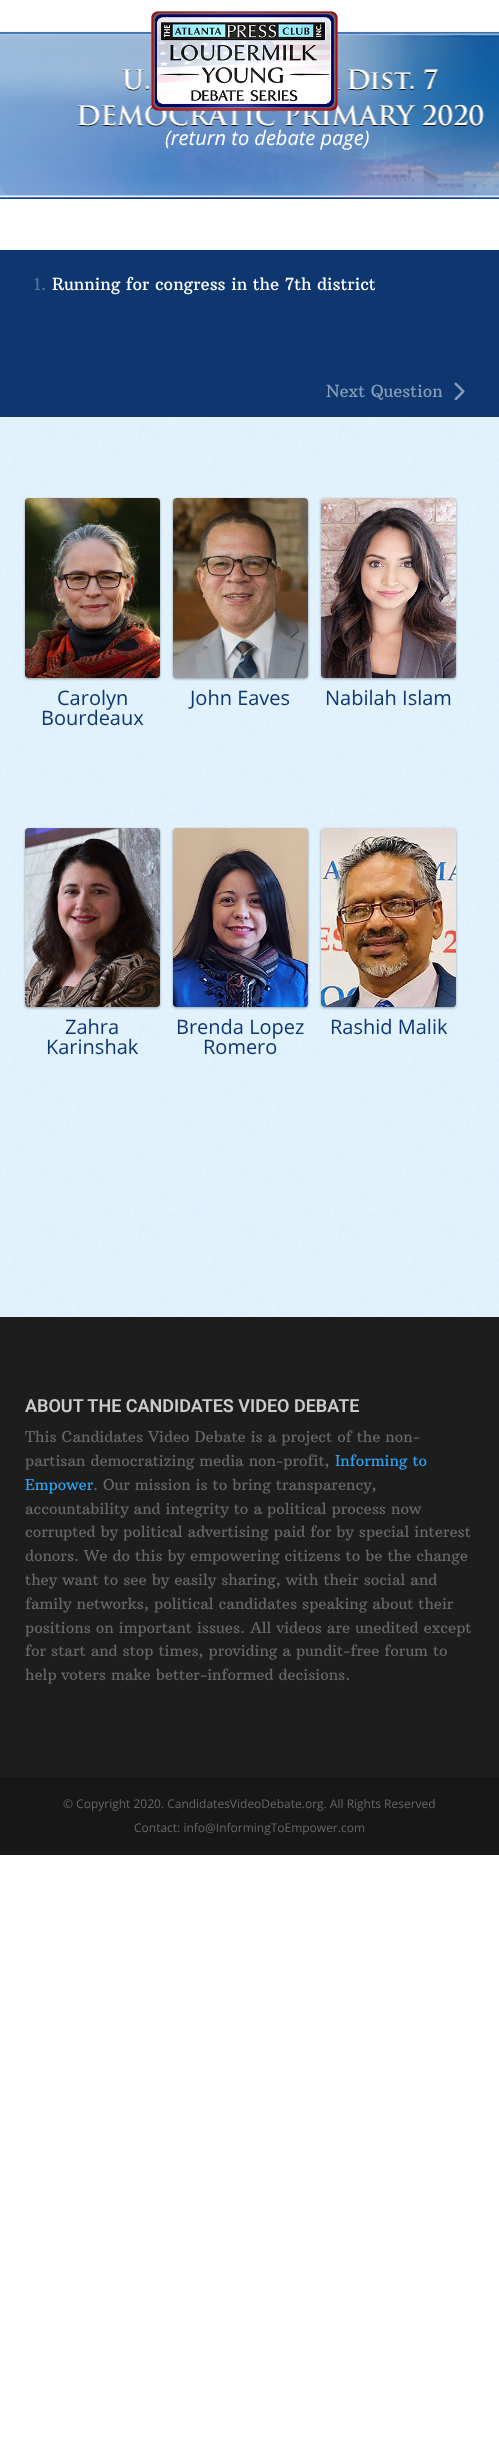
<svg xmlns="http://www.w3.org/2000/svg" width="499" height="2459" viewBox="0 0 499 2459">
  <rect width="100%" height="100%" fill="#fff"/>
  <image x="0" y="29" width="499" height="171" href="img/1.png"/>
  <image x="151" y="11" width="187" height="100" href="img/2.png"/>
  <path d="M0 250h499v167H0z" fill="#0e3770"/>
  <image x="454" y="382" width="11" height="19" href="img/3.png"/>
  <image x="0" y="417" width="499" height="900" href="img/4.png"/>
  <rect x="25" y="499" width="135" height="180" rx="4" fill="#0000003d" filter="blur(1px)"/>
  <rect x="25" y="499" width="135" height="180" rx="4" fill="#0000001f" filter="blur(1.5px)"/>
  <image x="25" y="498" width="135" height="180" href="img/5.png"/>
  <rect x="173" y="499" width="135" height="180" rx="4" fill="#0000003d" filter="blur(1px)"/>
  <rect x="173" y="499" width="135" height="180" rx="4" fill="#0000001f" filter="blur(1.5px)"/>
  <image x="173" y="498" width="135" height="180" href="img/6.png"/>
  <rect x="321" y="499" width="135" height="180" rx="4" fill="#0000003d" filter="blur(1px)"/>
  <rect x="321" y="499" width="135" height="180" rx="4" fill="#0000001f" filter="blur(1.5px)"/>
  <image x="321" y="498" width="135" height="180" href="img/7.png"/>
  <rect x="25" y="829" width="135" height="179" rx="4" fill="#0000003d" filter="blur(1px)"/>
  <rect x="25" y="829" width="135" height="179" rx="4" fill="#0000001f" filter="blur(1.5px)"/>
  <image x="25" y="828" width="135" height="179" href="img/8.png"/>
  <rect x="173" y="829" width="135" height="179" rx="4" fill="#0000003d" filter="blur(1px)"/>
  <rect x="173" y="829" width="135" height="179" rx="4" fill="#0000001f" filter="blur(1.5px)"/>
  <image x="173" y="828" width="135" height="179" href="img/9.png"/>
  <rect x="321" y="829" width="135" height="179" rx="4" fill="#0000003d" filter="blur(1px)"/>
  <rect x="321" y="829" width="135" height="179" rx="4" fill="#0000001f" filter="blur(1.5px)"/>
  <image x="321" y="828" width="135" height="179" href="img/10.png"/>
  <path d="M0 1317h499v460H0z" fill="#1d1d1d"/>
  <path d="M0 1777h499v78H0z" fill="#171717"/>
  <text x="165" y="145" font-family="Open Sans" font-size="20" font-style="italic" fill="#fff">(return to debate page)</text>
  <text x="34" y="290" font-family="Arbutus Slab" font-size="16.75" fill="#56739b">1.</text>
  <text x="52" y="290" font-family="Arbutus Slab" font-size="16.75" fill="#fff">Running for congress in the 7th district</text>
  <text x="326" y="397" font-family="Arbutus Slab" font-size="16.75" fill="#879bb8">Next Question</text>
  <g font-family="Open Sans" font-size="20" fill="#0e3770">
    <text x="57" y="705">Carolyn</text>
    <text x="41" y="725">Bourdeaux</text>
    <text x="190" y="705">John Eaves</text>
    <text x="325" y="705">Nabilah Islam</text>
    <text x="65" y="1034">Zahra</text>
    <text x="46" y="1054">Karinshak</text>
    <text x="176" y="1034">Brenda Lopez</text>
    <text x="203" y="1054">Romero</text>
    <text x="330" y="1034">Rashid Malik</text>
  </g>
  <text x="25" y="1412" font-family="Roboto" font-size="18" font-weight="600" fill="#ccc">ABOUT THE CANDIDATES VIDEO DEBATE</text>
  <g font-family="Arbutus Slab" font-size="15" fill="#666">
    <text x="25" y="1442">This Candidates Video Debate is a project of the non-</text>
    <text x="25" y="1466">partisan democratizing media non-profit,</text>
  </g>
  <g font-family="Arbutus Slab" font-size="15" fill="#2ea3f2">
    <text x="335" y="1466">Informing to</text>
    <text x="25" y="1490">Empower</text>
  </g>
  <g font-family="Arbutus Slab" font-size="15" fill="#666">
    <text x="93" y="1490">. Our mission is to bring transparency,</text>
    <text x="25" y="1514">accountability and integrity to a political process now</text>
    <text x="25" y="1537">corrupted by political advertising paid for by special interest</text>
    <text x="25" y="1561">donors. We do this by empowering citizens to be the change</text>
    <text x="25" y="1585">they want to see by easily sharing, with their social and</text>
    <text x="25" y="1609">family networks, political candidates speaking about their</text>
    <text x="25" y="1633">positions on important issues. All videos are unedited except</text>
    <text x="25" y="1656">for start and stop times, providing a pundit-free forum to</text>
    <text x="25" y="1680">help voters make better-informed decisions.</text>
  </g>
  <g font-family="Open Sans" font-size="12" fill="#666">
    <text x="63" y="1808">© Copyright 2020. CandidatesVideoDebate.org. All Rights Reserved</text>
    <text x="134" y="1832">Contact: info@InformingToEmpower.com</text>
  </g>
</svg>
